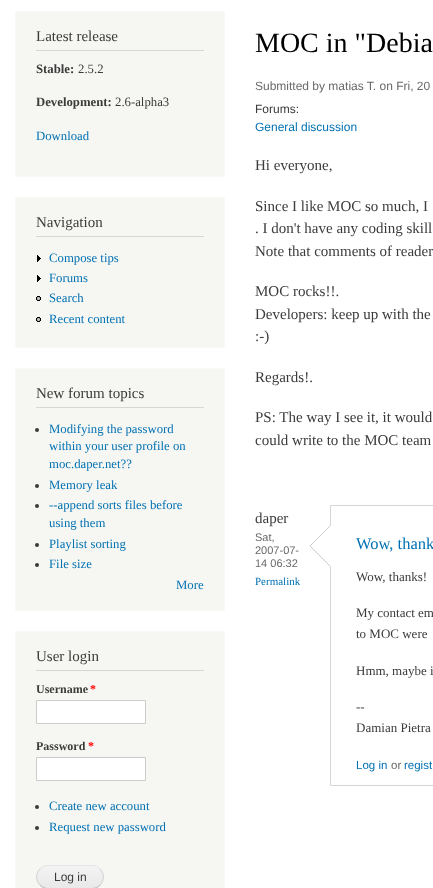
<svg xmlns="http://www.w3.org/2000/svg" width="433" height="888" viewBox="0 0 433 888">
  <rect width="100%" height="100%" fill="#fff"/>
  <path d="M15.5 11.5h209v165H15.5z" fill="#f6f6f2" stroke="#f9f9f9"/>
  <path d="M36 50h168v1H36z" fill="#d6d6d6"/>
  <path d="M15.5 197.5h209v150H15.5z" fill="#f6f6f2" stroke="#f9f9f9"/>
  <path d="M36 236h168v1H36z" fill="#d6d6d6"/>
  <image x="37" y="255" width="4" height="7" href="img/1.png"/>
  <image x="37" y="275" width="4" height="7" href="img/1.png"/>
  <image x="36" y="296" width="5" height="5" href="img/2.png"/>
  <image x="36" y="317" width="5" height="5" href="img/2.png"/>
  <path d="M15.5 368.5h209v242H15.5z" fill="#f6f6f2" stroke="#f9f9f9"/>
  <path d="M36 407h168v1H36z" fill="#d6d6d6"/>
  <circle cx="37" cy="430" r="2" fill="#3b3b3b"/>
  <circle cx="37" cy="486" r="2" fill="#3b3b3b"/>
  <circle cx="37" cy="506" r="2" fill="#3b3b3b"/>
  <circle cx="37" cy="545" r="2" fill="#3b3b3b"/>
  <circle cx="37" cy="565" r="2" fill="#3b3b3b"/>
  <path d="M15.5 631.5h209v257H15.5z" fill="#f6f6f2" stroke="#f9f9f9"/>
  <path d="M36 670h168v1H36z" fill="#d6d6d6"/>
  <path d="M36.5 700.5h109v23H36.5z" fill="#fff" stroke="#ccc"/>
  <path d="M36.5 757.5h109v23H36.5z" fill="#fff" stroke="#ccc"/>
  <circle cx="37" cy="807" r="2" fill="#3b3b3b"/>
  <circle cx="37" cy="828" r="2" fill="#3b3b3b"/>
  <image x="36" y="866" width="68" height="22" href="img/3.png"/>
  <path d="M40 869C42 866.5 45 865.5 48 865.5H92C95 865.5 98 866.5 100 869" fill="none" stroke="#e4e4e4"/>
  <path d="M100 869C104.5 873.5 104.5 880.5 100 885" fill="none" stroke="#d2d2d2"/>
  <path d="M100 885C98 887.5 95 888.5 92 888.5H48C45 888.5 42 887.5 40 885" fill="none" stroke="#b4b4b4"/>
  <path d="M40 885C35.5 880.5 35.5 873.5 40 869" fill="none" stroke="#d2d2d2"/>
  <path d="M330.5 505.5h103v280H330.5z" fill="none" stroke="#d3d7d9"/>
  <image x="310" y="526" width="20" height="40" href="img/4.png"/>
  <path d="M330 526h1v40H330z" fill="#fff"/>
  <text x="36" y="41" font-family="Liberation Serif" font-size="15" fill="#3b3b3b">Latest release</text>
  <text x="36" y="73" font-family="Liberation Serif" font-size="12.75" font-weight="bold" fill="#3b3b3b">Stable:</text>
  <text x="78" y="73" font-family="Liberation Serif" font-size="12.75" fill="#3b3b3b">2.5.2</text>
  <text x="36" y="106" font-family="Liberation Serif" font-size="12.75" font-weight="bold" fill="#3b3b3b">Development:</text>
  <text x="115" y="106" font-family="Liberation Serif" font-size="12.75" fill="#3b3b3b">2.6-alpha3</text>
  <text x="36" y="140" font-family="Liberation Serif" font-size="12.75" fill="#0071b3">Download</text>
  <text x="36" y="227" font-family="Liberation Serif" font-size="15" fill="#3b3b3b">Navigation</text>
  <g font-family="Liberation Serif" font-size="12.75" fill="#0071b3">
    <text x="49" y="262">Compose tips</text>
    <text x="49" y="282">Forums</text>
    <text x="49" y="302">Search</text>
    <text x="49" y="323">Recent content</text>
  </g>
  <text x="36" y="398" font-family="Liberation Serif" font-size="15" fill="#3b3b3b">New forum topics</text>
  <g font-family="Liberation Serif" font-size="12.75" fill="#0071b3">
    <text x="49" y="433">Modifying the password</text>
    <text x="49" y="450">within your user profile on</text>
    <text x="49" y="468">moc.daper.net??</text>
    <text x="49" y="489">Memory leak</text>
    <text x="49" y="509">--append sorts files before</text>
    <text x="49" y="527">using them</text>
    <text x="49" y="548">Playlist sorting</text>
    <text x="49" y="568">File size</text>
    <text x="176" y="589">More</text>
  </g>
  <text x="36" y="661" font-family="Liberation Serif" font-size="15" fill="#3b3b3b">User login</text>
  <text x="36" y="693" font-family="Liberation Serif" font-size="12" font-weight="bold" fill="#3b3b3b">Username</text>
  <text x="90" y="693" font-family="Liberation Serif" font-size="12" font-weight="bold" fill="#f00">*</text>
  <text x="36" y="750" font-family="Liberation Serif" font-size="12" font-weight="bold" fill="#3b3b3b">Password</text>
  <text x="88" y="750" font-family="Liberation Serif" font-size="12" font-weight="bold" fill="#f00">*</text>
  <g font-family="Liberation Serif" font-size="12.75" fill="#0071b3">
    <text x="49" y="810">Create new account</text>
    <text x="49" y="831">Request new password</text>
  </g>
  <text x="54" y="881" font-family="Liberation Sans" font-size="12" fill="#3b3b3b">Log in</text>
  <text x="255" y="52" font-family="Liberation Serif" font-size="28" fill="#000">MOC in "Debia</text>
  <text x="255" y="90" font-family="Liberation Sans" font-size="12" fill="#68696b">Submitted by matias T. on Fri, 20</text>
  <text x="255" y="113" font-family="Liberation Sans" font-size="12" fill="#3b3b3b">Forums:</text>
  <text x="255" y="131" font-family="Liberation Sans" font-size="12" fill="#0071b3">General discussion</text>
  <g font-family="Liberation Serif" font-size="15" fill="#3b3b3b">
    <text x="255" y="170">Hi everyone,</text>
    <text x="255" y="211">Since I like MOC so much, I</text>
    <text x="255" y="233">. I don't have any coding skill</text>
    <text x="255" y="256">Note that comments of reader</text>
    <text x="255" y="296">MOC rocks!!.</text>
    <text x="255" y="319">Developers: keep up with the</text>
    <text x="255" y="341">:-)</text>
    <text x="255" y="382">Regards!.</text>
    <text x="255" y="422">PS: The way I see it, it would</text>
    <text x="255" y="445">could write to the MOC team</text>
    <text x="255" y="523">daper</text>
  </g>
  <g font-family="Liberation Sans" font-size="11" fill="#68696b">
    <text x="255" y="541">Sat,</text>
    <text x="255" y="554">2007-07-</text>
    <text x="255" y="567">14 06:32</text>
  </g>
  <text x="255" y="585" font-family="Liberation Serif" font-size="11" fill="#0071b3">Permalink</text>
  <text x="356" y="549" font-family="Liberation Serif" font-size="16.5" fill="#0071b3">Wow, thank</text>
  <g font-family="Liberation Serif" font-size="13" fill="#3b3b3b">
    <text x="356" y="581">Wow, thanks!</text>
    <text x="356" y="617">My contact em</text>
    <text x="356" y="638">to MOC were</text>
    <text x="356" y="675">Hmm, maybe i</text>
    <text x="356" y="711">--</text>
    <text x="356" y="732">Damian Pietra</text>
  </g>
  <text x="356" y="769" font-family="Liberation Sans" font-size="11.5" fill="#0071b3">Log in</text>
  <text x="391" y="769" font-family="Liberation Sans" font-size="11.5" fill="#68696b">or</text>
  <text x="404" y="769" font-family="Liberation Sans" font-size="11.5" fill="#0071b3">regist</text>
</svg>
